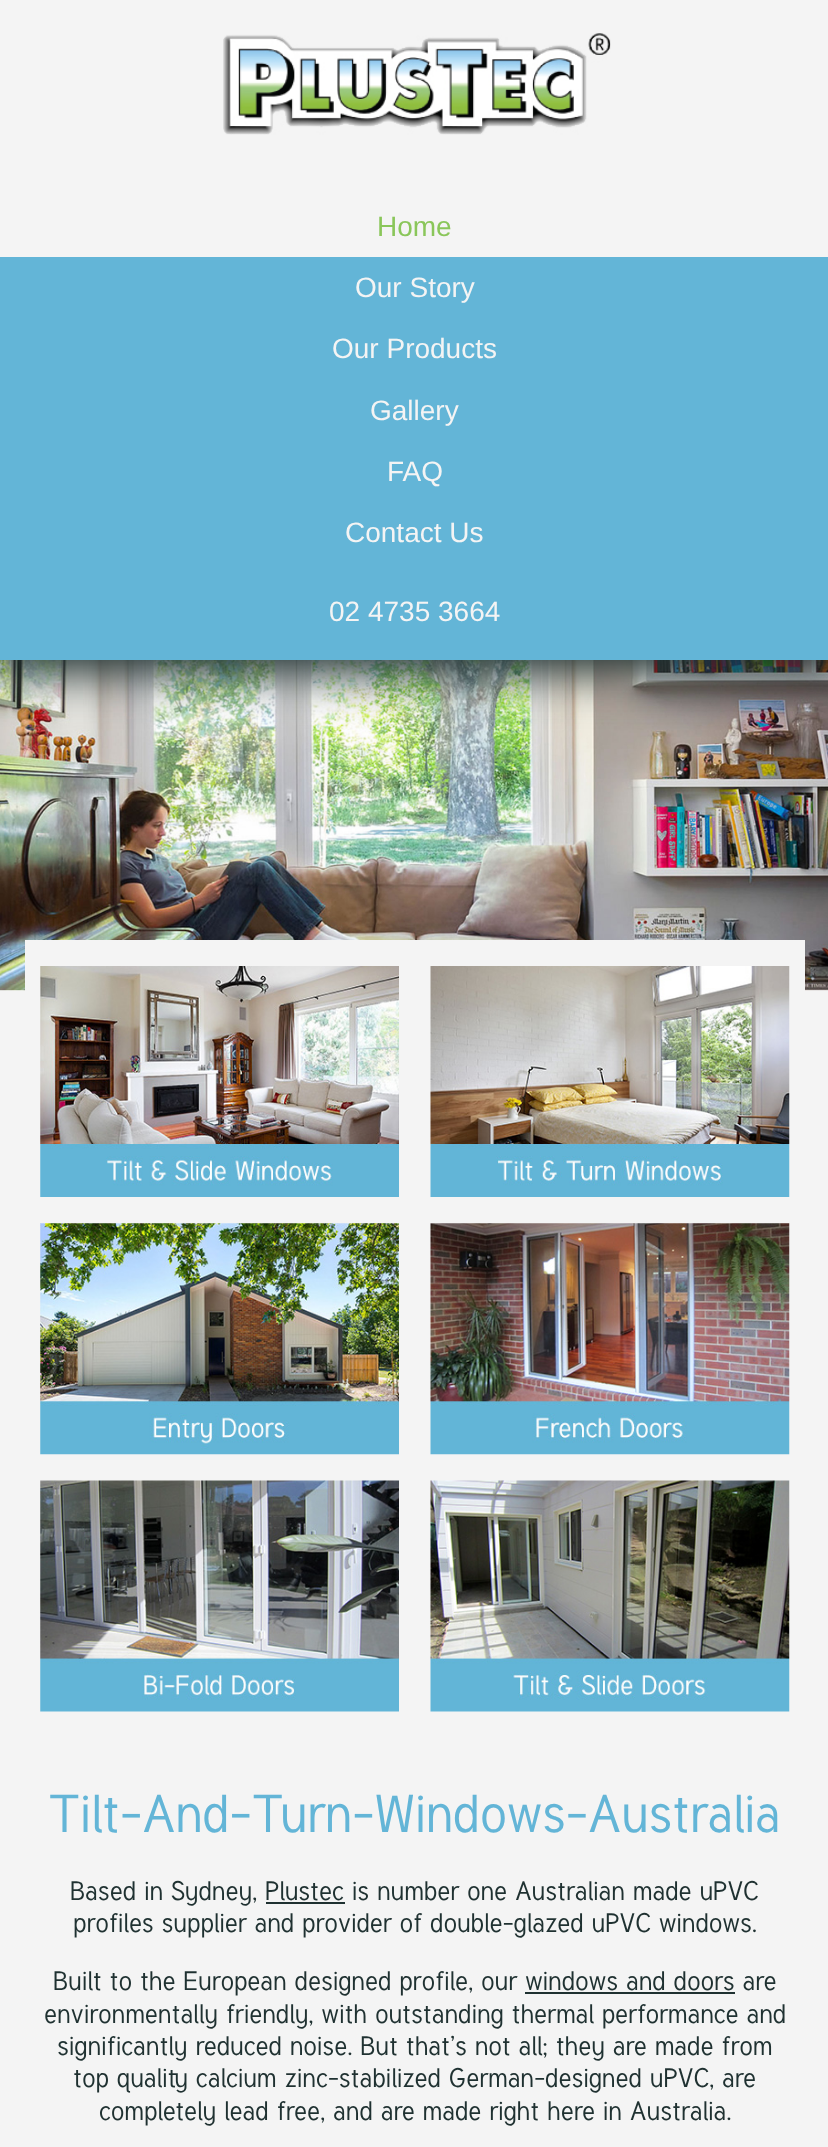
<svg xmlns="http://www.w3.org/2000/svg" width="828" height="2147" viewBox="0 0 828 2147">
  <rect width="100%" height="100%" fill="#f4f4f4"/>
  <path d="M0 990h828v1H0z" fill="#fff"/>
  <image x="0" y="660" width="828" height="331" href="img/2.png"/>
  <path d="M-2 -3h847v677H-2z" fill="#1f3131" filter="blur(23px)"/>
  <path d="M0 0h828v257H0z" fill="#f4f4f4"/>
  <image x="223" y="33" width="388" height="102" href="img/1.png"/>
  <path d="M0 257h828v403H0z" fill="#63b5d7"/>
  <path d="M25 940h780v51H25z" fill="#f4f4f4"/>
  <image x="40" y="966" width="359" height="231" href="img/3.png"/>
  <image x="430" y="966" width="360" height="231" href="img/4.png"/>
  <image x="40" y="1223" width="359" height="232" href="img/5.png"/>
  <image x="430" y="1223" width="360" height="232" href="img/6.png"/>
  <image x="40" y="1480" width="359" height="232" href="img/7.png"/>
  <image x="430" y="1480" width="360" height="232" href="img/8.png"/>
  <path d="M266 1902h79v2H266z" fill="#1f3131"/>
  <path d="M525 1992h210v2H525z" fill="#1f3131"/>
  <text x="377" y="236" font-family="Liberation Sans" font-size="28" fill="#8ac65a">Home</text>
  <g font-family="Liberation Sans" font-size="28" fill="#f4f4f4">
    <text x="355" y="297">Our Story</text>
    <text x="332" y="358">Our Products</text>
    <text x="370" y="420">Gallery</text>
    <text x="387" y="481">FAQ</text>
    <text x="345" y="542">Contact Us</text>
    <text x="329" y="621">02 4735 3664</text>
  </g>
  <text x="48" y="1832" font-family="Tuffy" font-size="52.5" font-weight="500" fill="#63b5d7">Tilt-And-Turn-Windows-Australia</text>
  <g font-family="Tuffy" font-size="26.25" font-weight="500" fill="#1f3131">
    <text x="70" y="1900">Based in Sydney, Plustec is number one Australian made uPVC</text>
    <text x="73" y="1932">profiles supplier and provider of double-glazed uPVC windows.</text>
    <text x="53" y="1990">Built to the European designed profile, our windows and doors are</text>
    <text x="44" y="2023">environmentally friendly, with outstanding thermal performance and</text>
    <text x="57" y="2055">significantly reduced noise. But that’s not all; they are made from</text>
    <text x="73" y="2087">top quality calcium zinc-stabilized German-designed uPVC, are</text>
    <text x="99" y="2120">completely lead free, and are made right here in Australia.</text>
  </g>
</svg>
